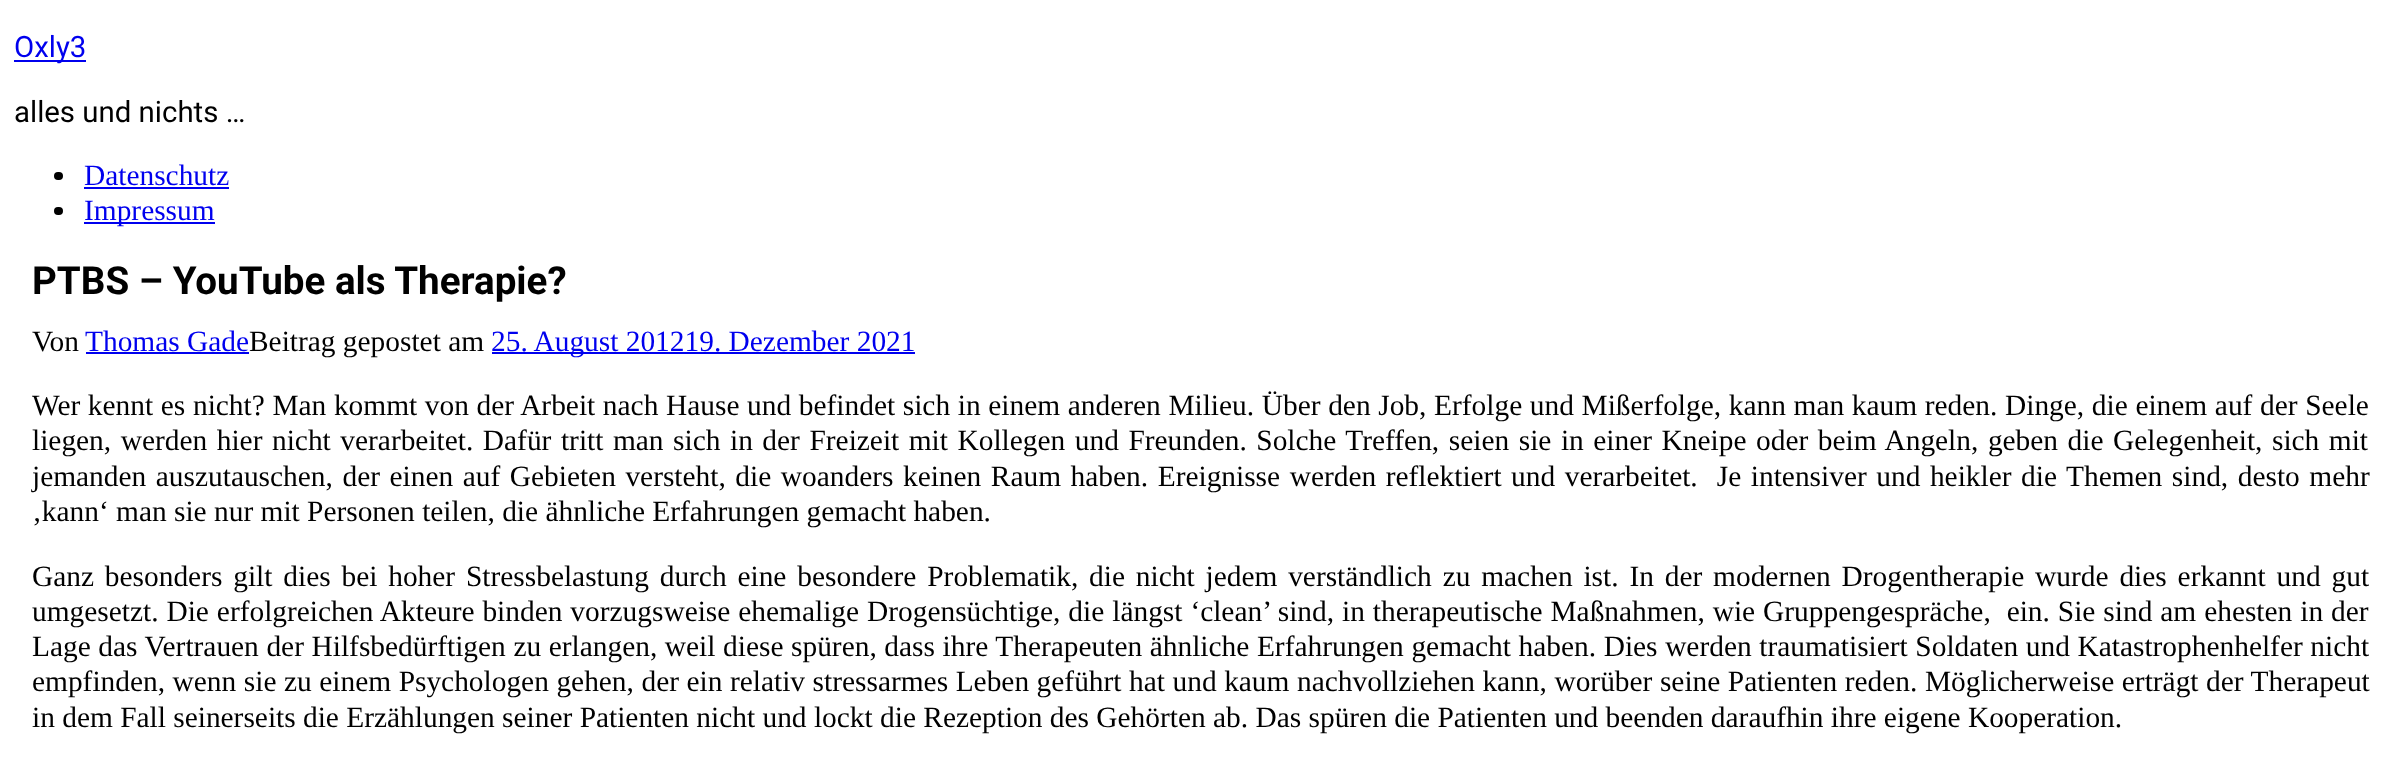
<svg xmlns="http://www.w3.org/2000/svg" width="2382" height="778" viewBox="0 0 2382 778">
  <rect width="100%" height="100%" fill="#fff"/>
  <path d="M14 60h72v2H14z" fill="#00e"/>
  <rect x="54" y="172" width="9" height="8" rx="4" fill="#000"/>
  <path d="M84 187h145v2H84z" fill="#00e"/>
  <rect x="54" y="207" width="9" height="8" rx="4" fill="#000"/>
  <path d="M84 222h131v2H84z" fill="#00e"/>
  <path d="M86 352h163v2H86z" fill="#00e"/>
  <path d="M492 352h423v2H492z" fill="#00e"/>
  <text x="14" y="57" font-family="Roboto" font-size="29.4" fill="#00e">Oxly3</text>
  <text x="14" y="122" font-family="Roboto" font-size="29.4" fill="#000">alles und nichts …</text>
  <g font-family="Liberation Serif" font-size="29.4" fill="#00e">
    <text x="84" y="185">Datenschutz</text>
    <text x="84" y="220">Impressum</text>
  </g>
  <text x="32" y="294" font-family="Roboto" font-size="38.6" font-weight="bold" fill="#000">PTBS – YouTube als Therapie?</text>
  <text x="32" y="351" font-family="Liberation Serif" font-size="29.4" fill="#000">Von</text>
  <text x="85" y="351" font-family="Liberation Serif" font-size="29.4" fill="#00e">Thomas Gade</text>
  <text x="249" y="351" font-family="Liberation Serif" font-size="29.4" fill="#000">Beitrag gepostet am</text>
  <text x="491" y="351" font-family="Liberation Serif" font-size="29.4" fill="#00e">25. August 201219. Dezember 2021</text>
  <g font-family="Liberation Serif" font-size="29.4" fill="#000">
    <text x="32" y="415" word-spacing="0.3">Wer kennt es nicht? Man kommt von der Arbeit nach Hause und befindet sich in einem anderen Milieu. Über den Job, Erfolge und Mißerfolge, kann man kaum reden. Dinge, die einem auf der Seele</text>
    <text x="32" y="450" word-spacing="2.2">liegen, werden hier nicht verarbeitet. Dafür tritt man sich in der Freizeit mit Kollegen und Freunden. Solche Treffen, seien sie in einer Kneipe oder beim Angeln, geben die Gelegenheit, sich mit</text>
    <text x="32" y="486" word-spacing="2.2" xml:space="preserve">jemanden auszutauschen, der einen auf Gebieten versteht, die woanders keinen Raum haben. Ereignisse werden reflektiert und verarbeitet.  Je intensiver und heikler die Themen sind, desto mehr</text>
    <text x="32" y="521">‚kann‘ man sie nur mit Personen teilen, die ähnliche Erfahrungen gemacht haben.</text>
    <text x="32" y="586" word-spacing="3.5">Ganz besonders gilt dies bei hoher Stressbelastung durch eine besondere Problematik, die nicht jedem verständlich zu machen ist. In der modernen Drogentherapie wurde dies erkannt und gut</text>
    <text x="32" y="621" word-spacing="0.6" xml:space="preserve">umgesetzt. Die erfolgreichen Akteure binden vorzugsweise ehemalige Drogensüchtige, die längst ‘clean’ sind, in therapeutische Maßnahmen, wie Gruppengespräche,  ein. Sie sind am ehesten in der</text>
    <text x="32" y="656" word-spacing="0.25">Lage das Vertrauen der Hilfsbedürftigen zu erlangen, weil diese spüren, dass ihre Therapeuten ähnliche Erfahrungen gemacht haben. Dies werden traumatisiert Soldaten und Katastrophenhelfer nicht</text>
    <text x="32" y="691" word-spacing="0.2">empfinden, wenn sie zu einem Psychologen gehen, der ein relativ stressarmes Leben geführt hat und kaum nachvollziehen kann, worüber seine Patienten reden. Möglicherweise erträgt der Therapeut</text>
    <text x="32" y="727">in dem Fall seinerseits die Erzählungen seiner Patienten nicht und lockt die Rezeption des Gehörten ab. Das spüren die Patienten und beenden daraufhin ihre eigene Kooperation.</text>
  </g>
</svg>
